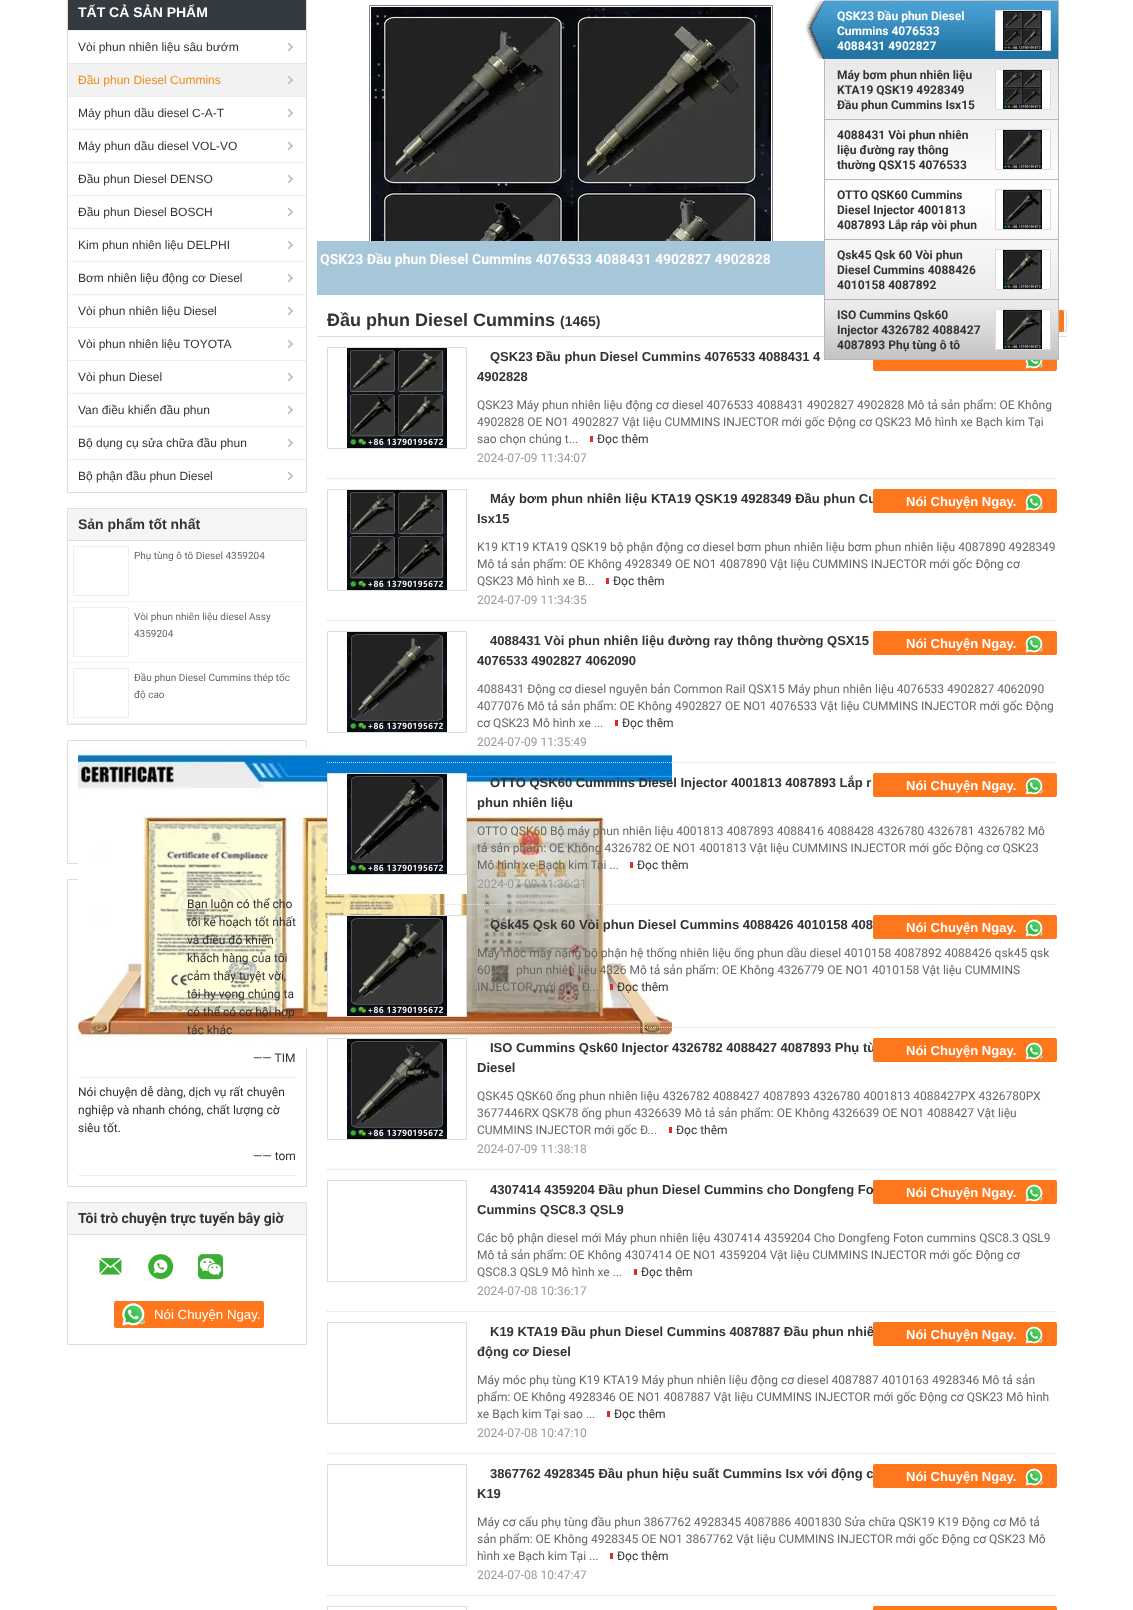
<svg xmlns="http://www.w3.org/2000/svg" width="1133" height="1610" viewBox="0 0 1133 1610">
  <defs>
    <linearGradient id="g1" gradientUnits="userSpaceOnUse" x1="942" y1="-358" x2="942" y2="1"><stop offset="0" stop-color="#d0d0d0"/><stop offset="0.15" stop-color="#e8e8e8"/><stop offset="0.55" stop-color="#fff"/><stop offset="0.85" stop-color="#eaeaea"/><stop offset="1" stop-color="#c2c2c2"/></linearGradient>
    <linearGradient id="g2" gradientUnits="userSpaceOnUse" x1="942" y1="1" x2="942" y2="360"><stop offset="0" stop-color="#d0d0d0"/><stop offset="0.15" stop-color="#e8e8e8"/><stop offset="0.55" stop-color="#fff"/><stop offset="0.85" stop-color="#eaeaea"/><stop offset="1" stop-color="#c2c2c2"/></linearGradient>
    <clipPath id="clip1"><path d="M317 2h508v239H317z"/></clipPath>
  </defs>
  <rect width="100%" height="100%" fill="#fff"/>
  <path d="M306 0h1v493H306z" fill="#dedede"/>
  <path d="M67 492h240v1H67z" fill="#dedede"/>
  <path d="M67 0h1v493H67z" fill="#dedede"/>
  <path d="M68 0h238v30H68z" fill="#333b41"/>
  <path d="M68 30.5H306" fill="none" stroke="#dedede" stroke-dasharray="1 1"/>
  <image x="288" y="43" width="5" height="8" href="img/1.png"/>
  <path d="M68 63h238v33H68z" fill="#f2f2f2"/>
  <path d="M68 63.5H306" fill="none" stroke="#dedede" stroke-dasharray="1 1"/>
  <image x="288" y="76" width="5" height="8" href="img/2.png"/>
  <path d="M68 96.5H306" fill="none" stroke="#dedede" stroke-dasharray="1 1"/>
  <image x="288" y="109" width="5" height="8" href="img/1.png"/>
  <path d="M68 129.5H306" fill="none" stroke="#dedede" stroke-dasharray="1 1"/>
  <image x="288" y="142" width="5" height="8" href="img/1.png"/>
  <path d="M68 162.5H306" fill="none" stroke="#dedede" stroke-dasharray="1 1"/>
  <image x="288" y="175" width="5" height="8" href="img/1.png"/>
  <path d="M68 195.5H306" fill="none" stroke="#dedede" stroke-dasharray="1 1"/>
  <image x="288" y="208" width="5" height="8" href="img/1.png"/>
  <path d="M68 228.5H306" fill="none" stroke="#dedede" stroke-dasharray="1 1"/>
  <image x="288" y="241" width="5" height="8" href="img/1.png"/>
  <path d="M68 261.5H306" fill="none" stroke="#dedede" stroke-dasharray="1 1"/>
  <image x="288" y="274" width="5" height="8" href="img/1.png"/>
  <path d="M68 294.5H306" fill="none" stroke="#dedede" stroke-dasharray="1 1"/>
  <image x="288" y="307" width="5" height="8" href="img/1.png"/>
  <path d="M68 327.5H306" fill="none" stroke="#dedede" stroke-dasharray="1 1"/>
  <image x="288" y="340" width="5" height="8" href="img/1.png"/>
  <path d="M68 360.5H306" fill="none" stroke="#dedede" stroke-dasharray="1 1"/>
  <image x="288" y="373" width="5" height="8" href="img/1.png"/>
  <path d="M68 393.5H306" fill="none" stroke="#dedede" stroke-dasharray="1 1"/>
  <image x="288" y="406" width="5" height="8" href="img/1.png"/>
  <path d="M68 426.5H306" fill="none" stroke="#dedede" stroke-dasharray="1 1"/>
  <image x="288" y="439" width="5" height="8" href="img/1.png"/>
  <path d="M68 459.5H306" fill="none" stroke="#dedede" stroke-dasharray="1 1"/>
  <image x="288" y="472" width="5" height="8" href="img/1.png"/>
  <path d="M67.5 508.5h239v216H67.5z" fill="none" stroke="#dedede"/>
  <path d="M68 509h238v31H68z" fill="#f5f5f5"/>
  <path d="M68 540h238v1H68z" fill="#dedede"/>
  <path d="M68 601h238v1H68z" fill="#f0f4f6"/>
  <path d="M73.5 546.5h55v49H73.5z" fill="none" stroke="#eee"/>
  <path d="M68 662h238v1H68z" fill="#f0f4f6"/>
  <path d="M73.5 607.5h55v49H73.5z" fill="none" stroke="#eee"/>
  <path d="M68 723h238v1H68z" fill="#f0f4f6"/>
  <path d="M73.5 668.5h55v49H73.5z" fill="none" stroke="#eee"/>
  <path d="M67.5 740.5h239v123H67.5z" fill="none" stroke="#dedede"/>
  <path d="M67.5 879.5h239v307H67.5z" fill="none" stroke="#dedede"/>
  <image x="78" y="748" width="594" height="300" href="img/3.png"/>
  <path d="M78 1077.5H296" fill="none" stroke="#dedede" stroke-dasharray="1 1"/>
  <path d="M78 1175.5H296" fill="none" stroke="#dedede" stroke-dasharray="1 1"/>
  <path d="M67.5 1202.5h239v142H67.5z" fill="none" stroke="#dedede"/>
  <path d="M68 1203h238v31H68z" fill="#f5f5f5"/>
  <path d="M68 1234h238v1H68z" fill="#dedede"/>
  <image x="99" y="1258" width="23" height="17" href="img/4.png"/>
  <image x="148" y="1254" width="26" height="26" href="img/5.png"/>
  <image x="198" y="1254" width="25" height="26" href="img/6.png"/>
  <rect x="114" y="1301" width="150" height="27" rx="2" fill="#ff771c"/>
  <image x="122" y="1303" width="23" height="23" href="img/7.png"/>
  <path d="M824 0h235v1H824z" fill="url(#g1)"/>
  <path d="M317 336h750v1H317z" fill="#dedede"/>
  <path d="M833.5 310.5h233v21H833.5z" fill="none" stroke="#dedede"/>
  <rect x="997" y="310" width="67" height="22" rx="2" fill="#ff771c"/>
  <rect x="873" y="347" width="184" height="24" rx="2" fill="#ff771c"/>
  <path d="M824 59h234v300H824z" fill="url(#g2)"/>
  <image x="805" y="1" width="253" height="58" href="img/9.png"/>
  <path d="M1058 1h1v359H1058z" fill="#b8b8b8"/>
  <path d="M995.5 10.5h55v40H995.5z" fill="#fff" stroke="#dcdcdc"/>
  <image x="1003" y="11" width="39" height="39" href="img/10.png"/>
  <path d="M824 119h235v1H824z" fill="#b8b8b8"/>
  <path d="M824 60h1v60H824z" fill="#b8b8b8"/>
  <path d="M995.5 69.5h55v40H995.5z" fill="#fff" stroke="#dcdcdc"/>
  <image x="1003" y="70" width="39" height="39" href="img/11.png"/>
  <path d="M824 179h235v1H824z" fill="#b8b8b8"/>
  <path d="M824 120h1v60H824z" fill="#b8b8b8"/>
  <path d="M995.5 129.5h55v40H995.5z" fill="#fff" stroke="#dcdcdc"/>
  <image x="1003" y="130" width="39" height="39" href="img/12.png"/>
  <path d="M824 239h235v1H824z" fill="#b8b8b8"/>
  <path d="M824 180h1v60H824z" fill="#b8b8b8"/>
  <path d="M996 211h54v18H996z" fill="#fff"/>
  <path d="M995.5 189.5h55v40H995.5z" fill="none" stroke="#dcdcdc"/>
  <image x="1003" y="190" width="39" height="39" href="img/13.png"/>
  <path d="M824 299h235v1H824z" fill="#b8b8b8"/>
  <path d="M824 240h1v60H824z" fill="#b8b8b8"/>
  <path d="M995.5 249.5h55v40H995.5z" fill="#fff" stroke="#dcdcdc"/>
  <image x="1003" y="250" width="39" height="39" href="img/14.png"/>
  <path d="M824 359h235v1H824z" fill="#b8b8b8"/>
  <path d="M824 300h1v60H824z" fill="#b8b8b8"/>
  <path d="M995.5 309.5h55v40H995.5z" fill="#fff" stroke="#dcdcdc"/>
  <image x="1003" y="310" width="39" height="39" href="img/15.png"/>
  <path d="M327 478.5H1057" fill="none" stroke="#dcdcdc" stroke-dasharray="1 1"/>
  <image x="1025" y="360" width="18" height="9" href="img/17.png"/>
  <path d="M590 436h3v6H590z" fill="#d4312e"/>
  <path d="M327 620.5H1057" fill="none" stroke="#dcdcdc" stroke-dasharray="1 1"/>
  <path d="M327.5 489.5h139v101H327.5z" fill="none" stroke="#dcdcdc"/>
  <image x="347" y="490" width="100" height="100" href="img/18.png"/>
  <path d="M606 578h3v6H606z" fill="#d4312e"/>
  <path d="M327 762.5H1057" fill="none" stroke="#dcdcdc" stroke-dasharray="1 1"/>
  <path d="M327 748h140v4H327z" fill="#fff"/>
  <path d="M327.5 631.5h139v101H327.5z" fill="none" stroke="#dcdcdc"/>
  <image x="347" y="632" width="100" height="100" href="img/20.png"/>
  <rect x="873" y="631" width="184" height="24" rx="2" fill="#ff771c"/>
  <image x="1025" y="635" width="18" height="18" href="img/19.png"/>
  <path d="M615 720h3v6H615z" fill="#d4312e"/>
  <path d="M327 904.5H1057" fill="none" stroke="#dcdcdc" stroke-dasharray="1 1"/>
  <path d="M327 774h140v120H327z" fill="#fff"/>
  <path d="M327.5 773.5h139v101H327.5z" fill="none" stroke="#dcdcdc"/>
  <image x="347" y="774" width="100" height="100" href="img/21.png"/>
  <rect x="873" y="773" width="184" height="24" rx="2" fill="#ff771c"/>
  <image x="1025" y="777" width="18" height="18" href="img/19.png"/>
  <path d="M630 862h3v6H630z" fill="#d4312e"/>
  <path d="M327 1027.5H1057" fill="none" stroke="#dcdcdc" stroke-dasharray="1 1"/>
  <path d="M327.5 915.5h139v101H327.5z" fill="#fff" stroke="#dcdcdc"/>
  <image x="347" y="916" width="100" height="100" href="img/22.png"/>
  <rect x="873" y="915" width="184" height="24" rx="2" fill="#ff771c"/>
  <image x="1025" y="919" width="18" height="18" href="img/19.png"/>
  <path d="M610 984h3v6H610z" fill="#d4312e"/>
  <path d="M327 1169.5H1057" fill="none" stroke="#dcdcdc" stroke-dasharray="1 1"/>
  <path d="M419 1039h7v5H419z" fill="#fff"/>
  <path d="M327.5 1038.5h139v101H327.5z" fill="none" stroke="#dcdcdc"/>
  <image x="347" y="1039" width="100" height="100" href="img/23.png"/>
  <path d="M669 1127h3v6H669z" fill="#d4312e"/>
  <path d="M327 1311.5H1057" fill="none" stroke="#dcdcdc" stroke-dasharray="1 1"/>
  <path d="M327.5 1180.5h139v101H327.5z" fill="none" stroke="#dcdcdc"/>
  <rect x="873" y="1180" width="184" height="24" rx="2" fill="#ff771c"/>
  <image x="1025" y="1184" width="18" height="18" href="img/19.png"/>
  <path d="M634 1269h3v6H634z" fill="#d4312e"/>
  <path d="M327 1453.5H1057" fill="none" stroke="#dcdcdc" stroke-dasharray="1 1"/>
  <path d="M327.5 1322.5h139v101H327.5z" fill="none" stroke="#dcdcdc"/>
  <path d="M607 1411h3v6H607z" fill="#d4312e"/>
  <path d="M327 1595.5H1057" fill="none" stroke="#dcdcdc" stroke-dasharray="1 1"/>
  <path d="M327.5 1464.5h139v101H327.5z" fill="none" stroke="#dcdcdc"/>
  <rect x="873" y="1464" width="184" height="24" rx="2" fill="#ff771c"/>
  <image x="1025" y="1468" width="18" height="18" href="img/19.png"/>
  <path d="M610 1553h3v6H610z" fill="#d4312e"/>
  <path d="M327.5 1606.5h139v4H327.5z" fill="none" stroke="#dcdcdc"/>
  <rect x="873" y="1606" width="184" height="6" rx="2" fill="#ff771c"/>
  <text x="78" y="17" font-family="Liberation Sans" font-size="14" font-weight="bold" fill="#fff">TẤT CẢ SẢN PHẨM</text>
  <text x="78" y="51" font-family="Liberation Sans" font-size="12" fill="#333">Vòi phun nhiên liệu sâu bướm</text>
  <text x="78" y="84" font-family="Liberation Sans" font-size="12" fill="#ee8e21">Đầu phun Diesel Cummins</text>
  <g font-family="Liberation Sans" font-size="12" fill="#333">
    <text x="78" y="117">Máy phun dầu diesel C-A-T</text>
    <text x="78" y="150">Máy phun dầu diesel VOL-VO</text>
    <text x="78" y="183">Đầu phun Diesel DENSO</text>
    <text x="78" y="216">Đầu phun Diesel BOSCH</text>
    <text x="78" y="249">Kim phun nhiên liệu DELPHI</text>
    <text x="78" y="282">Bơm nhiên liệu động cơ Diesel</text>
    <text x="78" y="315">Vòi phun nhiên liệu Diesel</text>
    <text x="78" y="348">Vòi phun nhiên liệu TOYOTA</text>
    <text x="78" y="381">Vòi phun Diesel</text>
    <text x="78" y="414">Van điều khiển đầu phun</text>
    <text x="78" y="447">Bộ dụng cụ sửa chữa đầu phun</text>
    <text x="78" y="480">Bộ phận đầu phun Diesel</text>
  </g>
  <text x="78" y="529" font-family="Liberation Sans" font-size="14" font-weight="bold" fill="#333">Sản phẩm tốt nhất</text>
  <g font-family="Roboto" font-size="10" fill="#666">
    <text x="134" y="559">Phụ tùng ô tô Diesel 4359204</text>
    <text x="134" y="620">Vòi phun nhiên liệu diesel Assy</text>
    <text x="134" y="637">4359204</text>
    <text x="134" y="681">Đầu phun Diesel Cummins thép tốc</text>
    <text x="134" y="698">độ cao</text>
  </g>
  <g font-family="Roboto" font-size="12" fill="#333">
    <text x="187" y="908">Bạn luôn có thể cho</text>
    <text x="187" y="926">tôi kế hoạch tốt nhất</text>
    <text x="187" y="944">và điều đó khiến</text>
    <text x="187" y="962">khách hàng của tôi</text>
    <text x="187" y="980">cảm thấy tuyệt vời,</text>
    <text x="187" y="998">tôi hy vọng chúng ta</text>
    <text x="187" y="1016">có thể có cơ hội hợp</text>
    <text x="187" y="1034">tác khác</text>
    <text x="253" y="1062">—— TIM</text>
    <text x="78" y="1096">Nói chuyện dễ dàng, dịch vụ rất chuyên</text>
    <text x="78" y="1114">nghiệp và nhanh chóng, chất lượng cờ</text>
    <text x="78" y="1132">siêu tốt.</text>
    <text x="253" y="1160">—— tom</text>
  </g>
  <text x="78" y="1223" font-family="Roboto" font-size="14" font-weight="bold" fill="#333">Tôi trò chuyện trực tuyến bây giờ</text>
  <text x="154" y="1319" font-family="Liberation Sans" font-size="13.25" fill="#fff">Nói Chuyện Ngay.</text>
  <g font-family="Roboto" font-size="12" font-weight="bold" fill="#fff">
    <text x="837" y="20">QSK23 Đầu phun Diesel</text>
    <text x="837" y="35">Cummins 4076533</text>
    <text x="837" y="50">4088431 4902827</text>
  </g>
  <g font-family="Roboto" font-size="12" font-weight="bold" fill="#333">
    <text x="837" y="79">Máy bơm phun nhiên liệu</text>
    <text x="837" y="94">KTA19 QSK19 4928349</text>
    <text x="837" y="109">Đầu phun Cummins Isx15</text>
    <text x="837" y="139">4088431 Vòi phun nhiên</text>
    <text x="837" y="154">liệu đường ray thông</text>
    <text x="837" y="169">thường QSX15 4076533</text>
    <text x="837" y="199">OTTO QSK60 Cummins</text>
    <text x="837" y="214">Diesel Injector 4001813</text>
    <text x="837" y="229">4087893 Lắp ráp vòi phun</text>
    <text x="837" y="259">Qsk45 Qsk 60 Vòi phun</text>
    <text x="837" y="274">Diesel Cummins 4088426</text>
    <text x="837" y="289">4010158 4087892</text>
    <text x="837" y="319">ISO Cummins Qsk60</text>
    <text x="837" y="334">Injector 4326782 4088427</text>
    <text x="837" y="349">4087893 Phụ tùng ô tô</text>
  </g>
  <text x="327" y="326" font-family="Liberation Sans" font-size="18" font-weight="bold" fill="#333">Đầu phun Diesel Cummins</text>
  <text x="560" y="326" font-family="Liberation Sans" font-size="14" font-weight="bold" fill="#333">(1465)</text>
  <text x="477" y="409" font-family="Roboto" font-size="12" fill="#666">QSK23 Máy phun nhiên liệu động cơ diesel 4076533 4088431 4902827 4902828 Mô tả sản phẩm: OE Không</text>
  <g clip-path="url(#clip1)">
    <path d="M369.5 5.5h403v403H369.5z" fill="none" stroke="#848282"/>
  </g>
  <g font-family="Liberation Sans" font-size="13" font-weight="bold" fill="#333">
    <text x="477" y="381">4902828</text>
    <text x="490" y="361">QSK23 Đầu phun Diesel Cummins 4076533 4088431 4</text>
  </g>
  <path d="M327.5 347.5h139v101H327.5z" fill="none" stroke="#dcdcdc"/>
  <image x="347" y="348" width="100" height="100" href="img/16.png"/>
  <path d="M317 241h507v54H317z" fill="#a6c7d9"/>
  <text x="320" y="264" font-family="Roboto" font-size="14" font-weight="bold" fill="#fff">QSK23 Đầu phun Diesel Cummins 4076533 4088431 4902827 4902828</text>
  <image x="371" y="7" width="400" height="234" href="img/8.png"/>
  <g font-family="Roboto" font-size="12" fill="#666">
    <text x="477" y="426">4902828 OE NO1 4902827 Vật liệu CUMMINS INJECTOR mới gốc Động cơ QSK23 Mô hình xe Bạch kim Tại</text>
    <text x="477" y="443">sao chọn chúng t...</text>
  </g>
  <text x="597" y="443" font-family="Roboto" font-size="12" fill="#333">Đọc thêm</text>
  <text x="477" y="462" font-family="Roboto" font-size="12" fill="#999">2024-07-09 11:34:07</text>
  <text x="490" y="503" font-family="Liberation Sans" font-size="13" font-weight="bold" fill="#333">Máy bơm phun nhiên liệu KTA19 QSK19 4928349 Đầu phun Cu</text>
  <rect x="873" y="489" width="184" height="24" rx="2" fill="#ff771c"/>
  <text x="906" y="506" font-family="Liberation Sans" font-size="13" font-weight="bold" fill="#fff">Nói Chuyện Ngay.</text>
  <image x="1025" y="493" width="18" height="18" href="img/19.png"/>
  <text x="477" y="523" font-family="Liberation Sans" font-size="13" font-weight="bold" fill="#333">Isx15</text>
  <g font-family="Roboto" font-size="12" fill="#666">
    <text x="477" y="551">K19 KT19 KTA19 QSK19 bộ phận động cơ diesel bơm phun nhiên liệu bơm phun nhiên liệu 4087890 4928349</text>
    <text x="477" y="568">Mô tả sản phẩm: OE Không 4928349 OE NO1 4087890 Vật liệu CUMMINS INJECTOR mới gốc Động cơ</text>
    <text x="477" y="585">QSK23 Mô hình xe B...</text>
  </g>
  <text x="613" y="585" font-family="Roboto" font-size="12" fill="#333">Đọc thêm</text>
  <text x="477" y="604" font-family="Roboto" font-size="12" fill="#999">2024-07-09 11:34:35</text>
  <text x="490" y="645" font-family="Liberation Sans" font-size="13" font-weight="bold" fill="#333">4088431 Vòi phun nhiên liệu đường ray thông thường QSX15</text>
  <text x="906" y="648" font-family="Liberation Sans" font-size="13" font-weight="bold" fill="#fff">Nói Chuyện Ngay.</text>
  <text x="477" y="665" font-family="Liberation Sans" font-size="13" font-weight="bold" fill="#333">4076533 4902827 4062090</text>
  <g font-family="Roboto" font-size="12" fill="#666">
    <text x="477" y="693">4088431 Động cơ diesel nguyên bản Common Rail QSX15 Máy phun nhiên liệu 4076533 4902827 4062090</text>
    <text x="477" y="710">4077076 Mô tả sản phẩm: OE Không 4902827 OE NO1 4076533 Vật liệu CUMMINS INJECTOR mới gốc Động</text>
    <text x="477" y="727">cơ QSK23 Mô hình xe ...</text>
  </g>
  <text x="622" y="727" font-family="Roboto" font-size="12" fill="#333">Đọc thêm</text>
  <text x="477" y="746" font-family="Roboto" font-size="12" fill="#999">2024-07-09 11:35:49</text>
  <text x="490" y="787" font-family="Liberation Sans" font-size="13" font-weight="bold" fill="#333">OTTO QSK60 Cummins Diesel Injector 4001813 4087893 Lắp r</text>
  <text x="906" y="790" font-family="Liberation Sans" font-size="13" font-weight="bold" fill="#fff">Nói Chuyện Ngay.</text>
  <text x="477" y="807" font-family="Liberation Sans" font-size="13" font-weight="bold" fill="#333">phun nhiên liệu</text>
  <g font-family="Roboto" font-size="12" fill="#666">
    <text x="477" y="835">OTTO QSK60 Bộ máy phun nhiên liệu 4001813 4087893 4088416 4088428 4326780 4326781 4326782 Mô</text>
    <text x="477" y="852">tả sản phẩm: OE Không 4326782 OE NO1 4001813 Vật liệu CUMMINS INJECTOR mới gốc Động cơ QSK23</text>
    <text x="477" y="869">Mô hình xe Bạch kim Tại ...</text>
  </g>
  <text x="637" y="869" font-family="Roboto" font-size="12" fill="#333">Đọc thêm</text>
  <text x="477" y="888" font-family="Roboto" font-size="12" fill="#999">2024-07-09 11:36:21</text>
  <text x="490" y="929" font-family="Liberation Sans" font-size="13" font-weight="bold" fill="#333">Qsk45 Qsk 60 Vòi phun Diesel Cummins 4088426 4010158 408</text>
  <text x="906" y="932" font-family="Liberation Sans" font-size="13" font-weight="bold" fill="#fff">Nói Chuyện Ngay.</text>
  <g font-family="Roboto" font-size="12" fill="#666">
    <text x="477" y="957">Máy móc máy nặng bộ phận hệ thống nhiên liệu ống phun dầu diesel 4010158 4087892 4088426 qsk45 qsk</text>
    <text x="477" y="974">60</text>
    <text x="516" y="974">phun nhiên liệu 4326 Mô tả sản phẩm: OE Không 4326779 OE NO1 4010158 Vật liệu CUMMINS</text>
    <text x="477" y="991">INJECTOR mới gốc Đ...</text>
  </g>
  <text x="617" y="991" font-family="Roboto" font-size="12" fill="#333">Đọc thêm</text>
  <text x="490" y="1052" font-family="Liberation Sans" font-size="13" font-weight="bold" fill="#333">ISO Cummins Qsk60 Injector 4326782 4088427 4087893 Phụ tù</text>
  <rect x="873" y="1038" width="184" height="24" rx="2" fill="#ff771c"/>
  <text x="906" y="1055" font-family="Liberation Sans" font-size="13" font-weight="bold" fill="#fff">Nói Chuyện Ngay.</text>
  <image x="1025" y="1042" width="18" height="18" href="img/19.png"/>
  <text x="477" y="1072" font-family="Liberation Sans" font-size="13" font-weight="bold" fill="#333">Diesel</text>
  <g font-family="Roboto" font-size="12" fill="#666">
    <text x="477" y="1100">QSK45 QSK60 ống phun nhiên liệu 4326782 4088427 4087893 4326780 4001813 4088427PX 4326780PX</text>
    <text x="477" y="1117">3677446RX QSK78 ống phun 4326639 Mô tả sản phẩm: OE Không 4326639 OE NO1 4088427 Vật liệu</text>
    <text x="477" y="1134">CUMMINS INJECTOR mới gốc Đ...</text>
  </g>
  <text x="676" y="1134" font-family="Roboto" font-size="12" fill="#333">Đọc thêm</text>
  <text x="477" y="1153" font-family="Roboto" font-size="12" fill="#999">2024-07-09 11:38:18</text>
  <text x="490" y="1194" font-family="Liberation Sans" font-size="13" font-weight="bold" fill="#333">4307414 4359204 Đầu phun Diesel Cummins cho Dongfeng Fo</text>
  <text x="906" y="1197" font-family="Liberation Sans" font-size="13" font-weight="bold" fill="#fff">Nói Chuyện Ngay.</text>
  <text x="477" y="1214" font-family="Liberation Sans" font-size="13" font-weight="bold" fill="#333">Cummins QSC8.3 QSL9</text>
  <g font-family="Roboto" font-size="12" fill="#666">
    <text x="477" y="1242">Các bộ phận diesel mới Máy phun nhiên liệu 4307414 4359204 Cho Dongfeng Foton cummins QSC8.3 QSL9</text>
    <text x="477" y="1259">Mô tả sản phẩm: OE Không 4307414 OE NO1 4359204 Vật liệu CUMMINS INJECTOR mới gốc Động cơ</text>
    <text x="477" y="1276">QSC8.3 QSL9 Mô hình xe ...</text>
  </g>
  <text x="641" y="1276" font-family="Roboto" font-size="12" fill="#333">Đọc thêm</text>
  <text x="477" y="1295" font-family="Roboto" font-size="12" fill="#999">2024-07-08 10:36:17</text>
  <text x="490" y="1336" font-family="Liberation Sans" font-size="13" font-weight="bold" fill="#333">K19 KTA19 Đầu phun Diesel Cummins 4087887 Đầu phun nhiê</text>
  <rect x="873" y="1322" width="184" height="24" rx="2" fill="#ff771c"/>
  <text x="906" y="1339" font-family="Liberation Sans" font-size="13" font-weight="bold" fill="#fff">Nói Chuyện Ngay.</text>
  <image x="1025" y="1326" width="18" height="18" href="img/19.png"/>
  <text x="477" y="1356" font-family="Liberation Sans" font-size="13" font-weight="bold" fill="#333">động cơ Diesel</text>
  <g font-family="Roboto" font-size="12" fill="#666">
    <text x="477" y="1384">Máy móc phụ tùng K19 KTA19 Máy phun nhiên liệu động cơ diesel 4087887 4010163 4928346 Mô tả sản</text>
    <text x="477" y="1401">phẩm: OE Không 4928346 OE NO1 4087887 Vật liệu CUMMINS INJECTOR mới gốc Động cơ QSK23 Mô hình</text>
    <text x="477" y="1418">xe Bạch kim Tại sao ...</text>
  </g>
  <text x="614" y="1418" font-family="Roboto" font-size="12" fill="#333">Đọc thêm</text>
  <text x="477" y="1437" font-family="Roboto" font-size="12" fill="#999">2024-07-08 10:47:10</text>
  <text x="490" y="1478" font-family="Liberation Sans" font-size="13" font-weight="bold" fill="#333">3867762 4928345 Đầu phun hiệu suất Cummins Isx với động c</text>
  <text x="906" y="1481" font-family="Liberation Sans" font-size="13" font-weight="bold" fill="#fff">Nói Chuyện Ngay.</text>
  <text x="477" y="1498" font-family="Liberation Sans" font-size="13" font-weight="bold" fill="#333">K19</text>
  <g font-family="Roboto" font-size="12" fill="#666">
    <text x="477" y="1526">Máy cơ cấu phụ tùng đầu phun 3867762 4928345 4087886 4001830 Sửa chữa QSK19 K19 Động cơ Mô tả</text>
    <text x="477" y="1543">sản phẩm: OE Không 4928345 OE NO1 3867762 Vật liệu CUMMINS INJECTOR mới gốc Động cơ QSK23 Mô</text>
    <text x="477" y="1560">hình xe Bạch kim Tại ...</text>
  </g>
  <text x="617" y="1560" font-family="Roboto" font-size="12" fill="#333">Đọc thêm</text>
  <text x="477" y="1579" font-family="Roboto" font-size="12" fill="#999">2024-07-08 10:47:47</text>
</svg>
